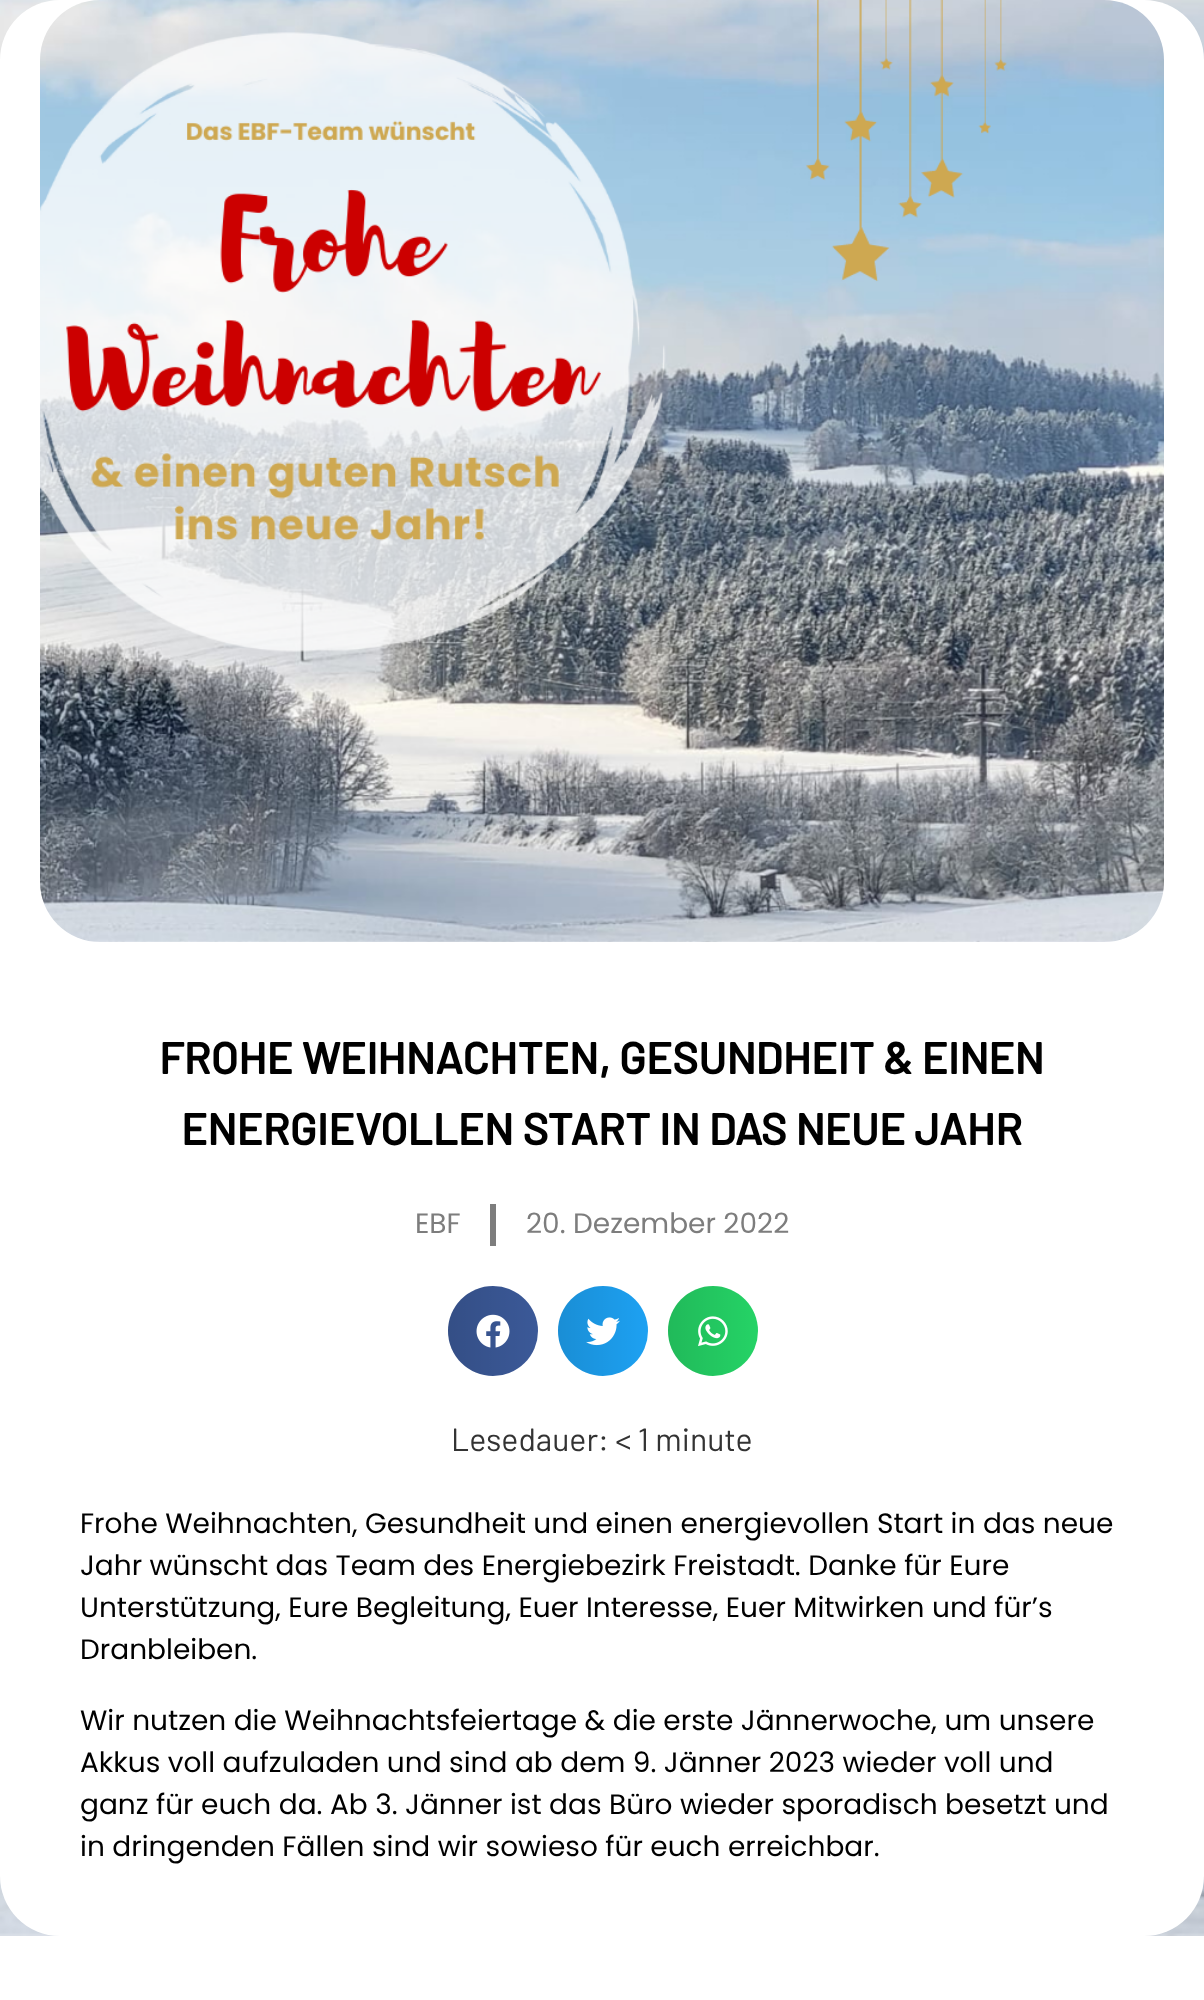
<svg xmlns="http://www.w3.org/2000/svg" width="1204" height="2000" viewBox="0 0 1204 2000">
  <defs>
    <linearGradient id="g1" gradientUnits="userSpaceOnUse" x1="448" y1="1331" x2="538" y2="1331"><stop offset="0" stop-color="#000" stop-opacity="0.12"/><stop offset="1" stop-color="#000" stop-opacity="0"/></linearGradient>
    <linearGradient id="g2" gradientUnits="userSpaceOnUse" x1="558" y1="1331" x2="648" y2="1331"><stop offset="0" stop-color="#000" stop-opacity="0.12"/><stop offset="1" stop-color="#000" stop-opacity="0"/></linearGradient>
    <linearGradient id="g3" gradientUnits="userSpaceOnUse" x1="668" y1="1331" x2="758" y2="1331"><stop offset="0" stop-color="#000" stop-opacity="0.12"/><stop offset="1" stop-color="#000" stop-opacity="0"/></linearGradient>
  </defs>
  <rect width="100%" height="100%" fill="#fff"/>
  <image x="0" y="0" width="1204" height="1936" href="img/1.png"/>
  <rect width="1204" height="1936" rx="60" fill="#fff"/>
  <image x="40" y="0" width="1124" height="942" href="img/2.png"/>
  <path d="M490 1204h6v42H490z" fill="#7d7d7d"/>
  <circle cx="493" cy="1331" r="45" fill="#3b5998"/>
  <circle cx="493" cy="1331" r="45" fill="url(#g1)"/>
  <image x="476" y="1314" width="34" height="34" href="img/3.png"/>
  <circle cx="603" cy="1331" r="45" fill="#1da1f2"/>
  <circle cx="603" cy="1331" r="45" fill="url(#g2)"/>
  <image x="586" y="1317" width="34" height="29" href="img/4.png"/>
  <circle cx="713" cy="1331" r="45" fill="#25d366"/>
  <circle cx="713" cy="1331" r="45" fill="url(#g3)"/>
  <image x="698" y="1316" width="30" height="31" href="img/5.png"/>
  <g font-family="Barlow" font-size="44" font-weight="bold" fill="#000">
    <text x="159" y="1074">FROHE WEIHNACHTEN, GESUNDHEIT &amp; EINEN</text>
    <text x="181" y="1145">ENERGIEVOLLEN START IN DAS NEUE JAHR</text>
  </g>
  <g font-family="Poppins" font-size="28" fill="#7d7d7d">
    <text x="415" y="1233">EBF</text>
    <text x="526" y="1233">20. Dezember 2022</text>
  </g>
  <text x="451" y="1451" font-family="Barlow" font-size="32" fill="#333">Lesedauer: &lt; 1 minute</text>
  <g font-family="Poppins" font-size="28" fill="#000">
    <text x="80" y="1533">Frohe Weihnachten, Gesundheit und einen energievollen Start in das neue</text>
    <text x="80" y="1575">Jahr wünscht das Team des Energiebezirk Freistadt. Danke für Eure</text>
    <text x="80" y="1617">Unterstützung, Eure Begleitung, Euer Interesse, Euer Mitwirken und für’s</text>
    <text x="80" y="1659">Dranbleiben.</text>
    <text x="80" y="1730">Wir nutzen die Weihnachtsfeiertage &amp; die erste Jännerwoche, um unsere</text>
    <text x="80" y="1772">Akkus voll aufzuladen und sind ab dem 9. Jänner 2023 wieder voll und</text>
    <text x="80" y="1814">ganz für euch da. Ab 3. Jänner ist das Büro wieder sporadisch besetzt und</text>
    <text x="80" y="1856">in dringenden Fällen sind wir sowieso für euch erreichbar.</text>
  </g>
</svg>
